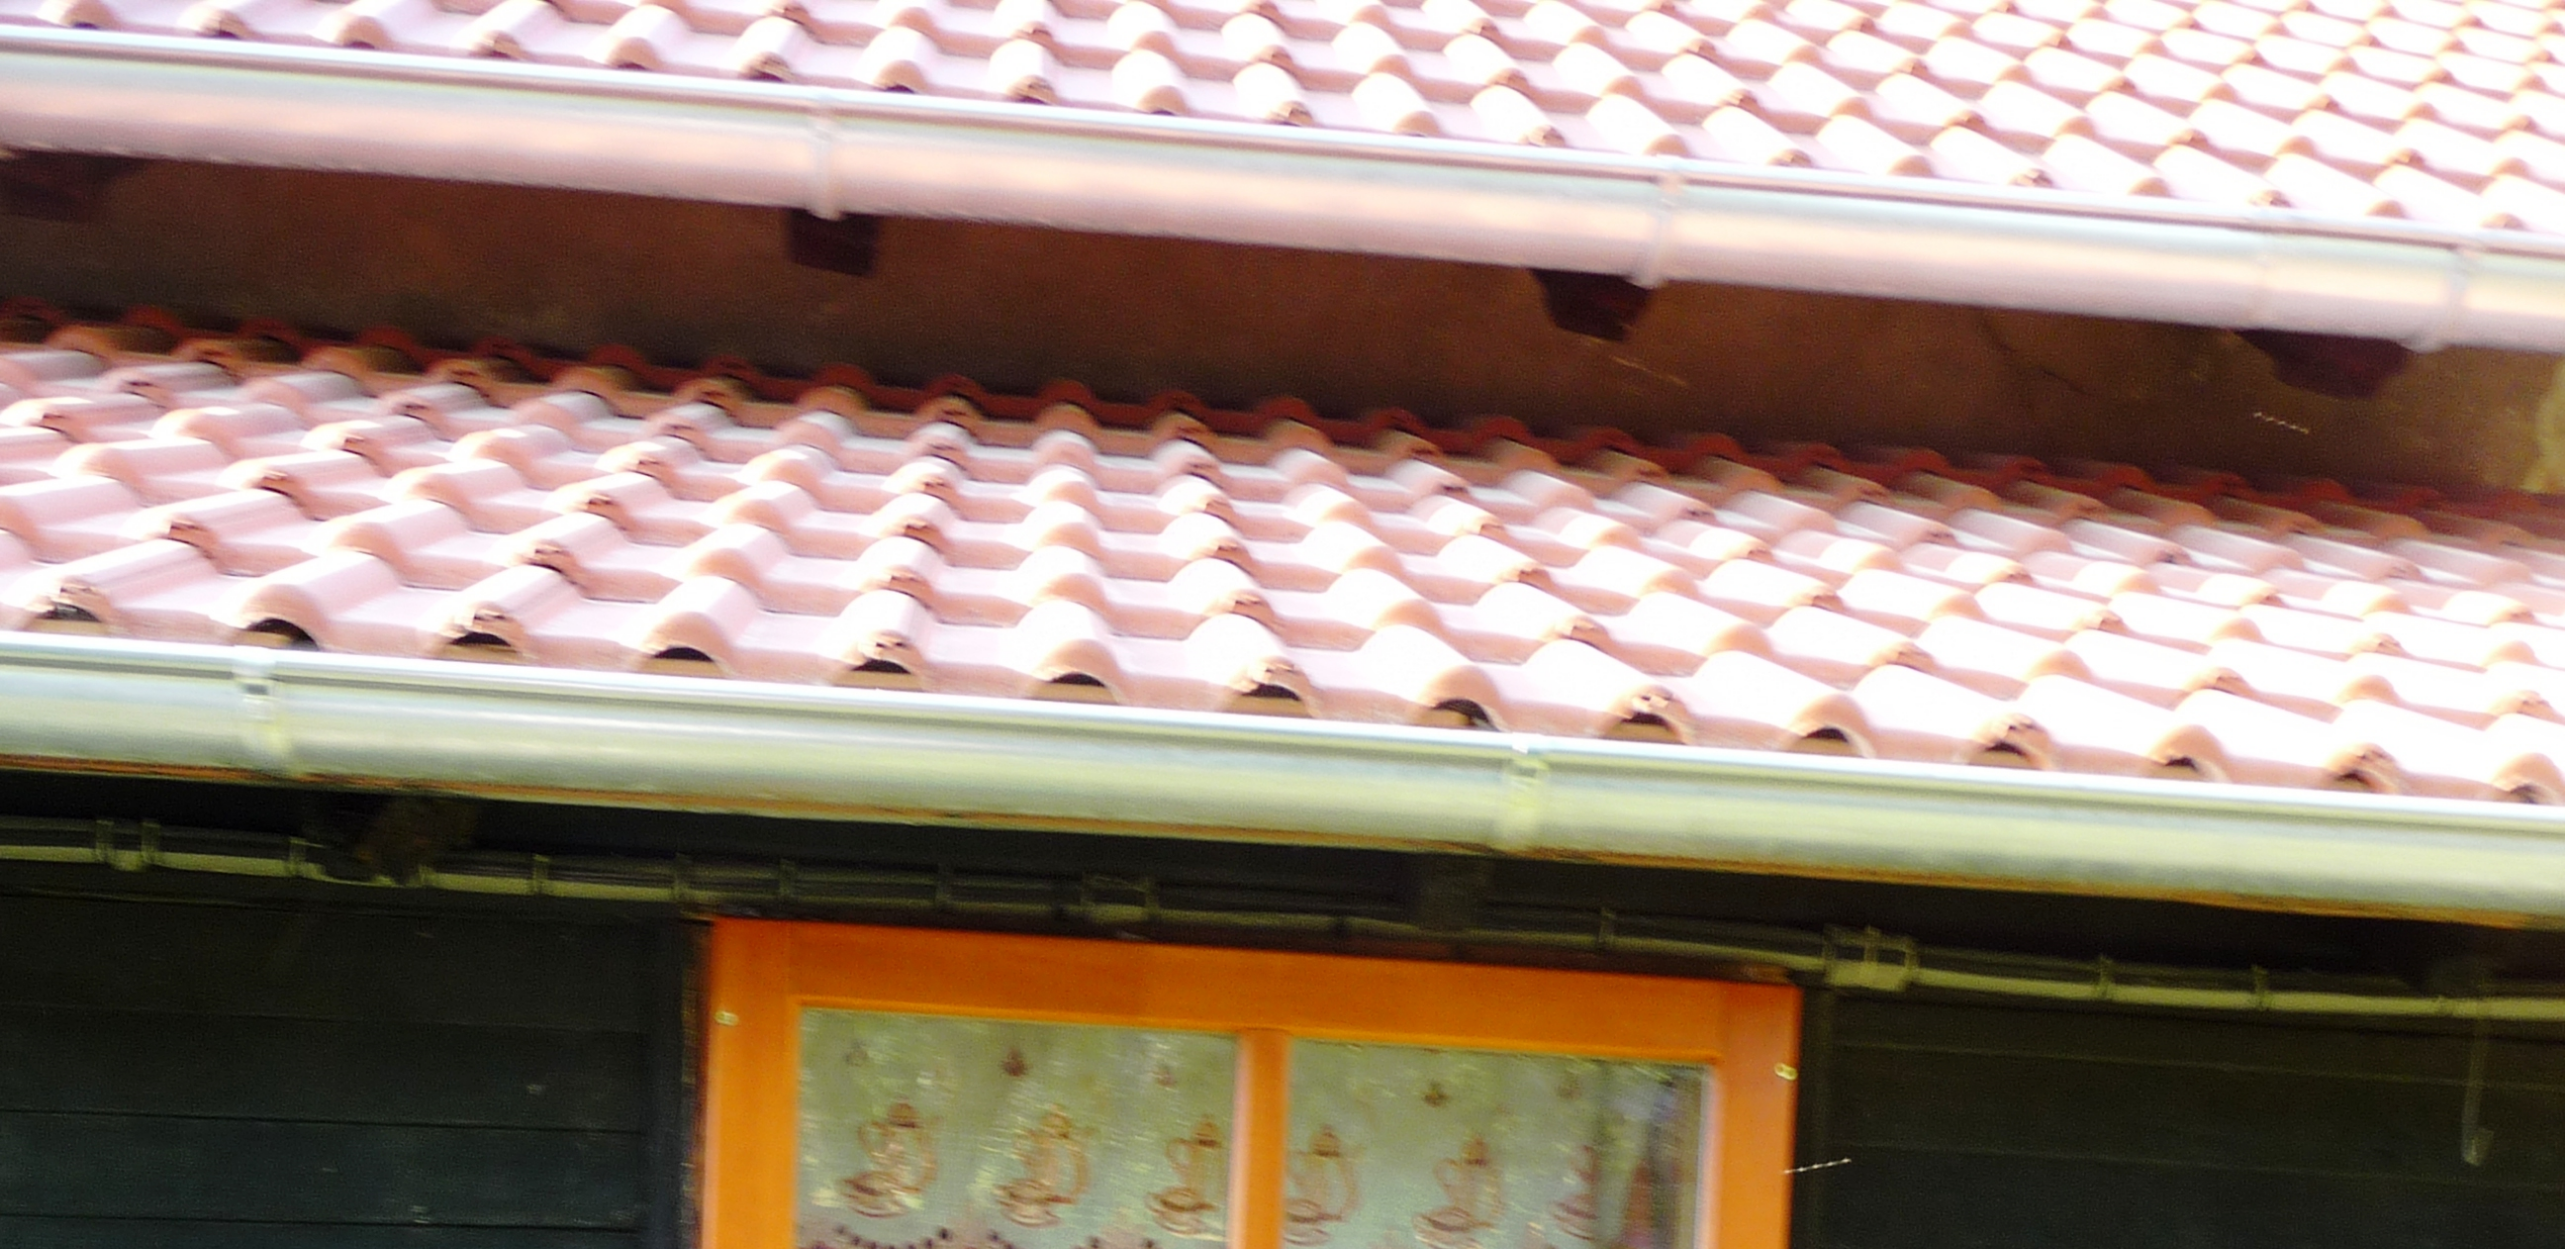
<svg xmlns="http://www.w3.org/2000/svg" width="2565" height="1249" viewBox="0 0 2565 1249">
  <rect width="100%" height="100%" fill="#fff"/>
  <image x="0" y="0" width="2565" height="1249" href="img/1.png"/>
</svg>
